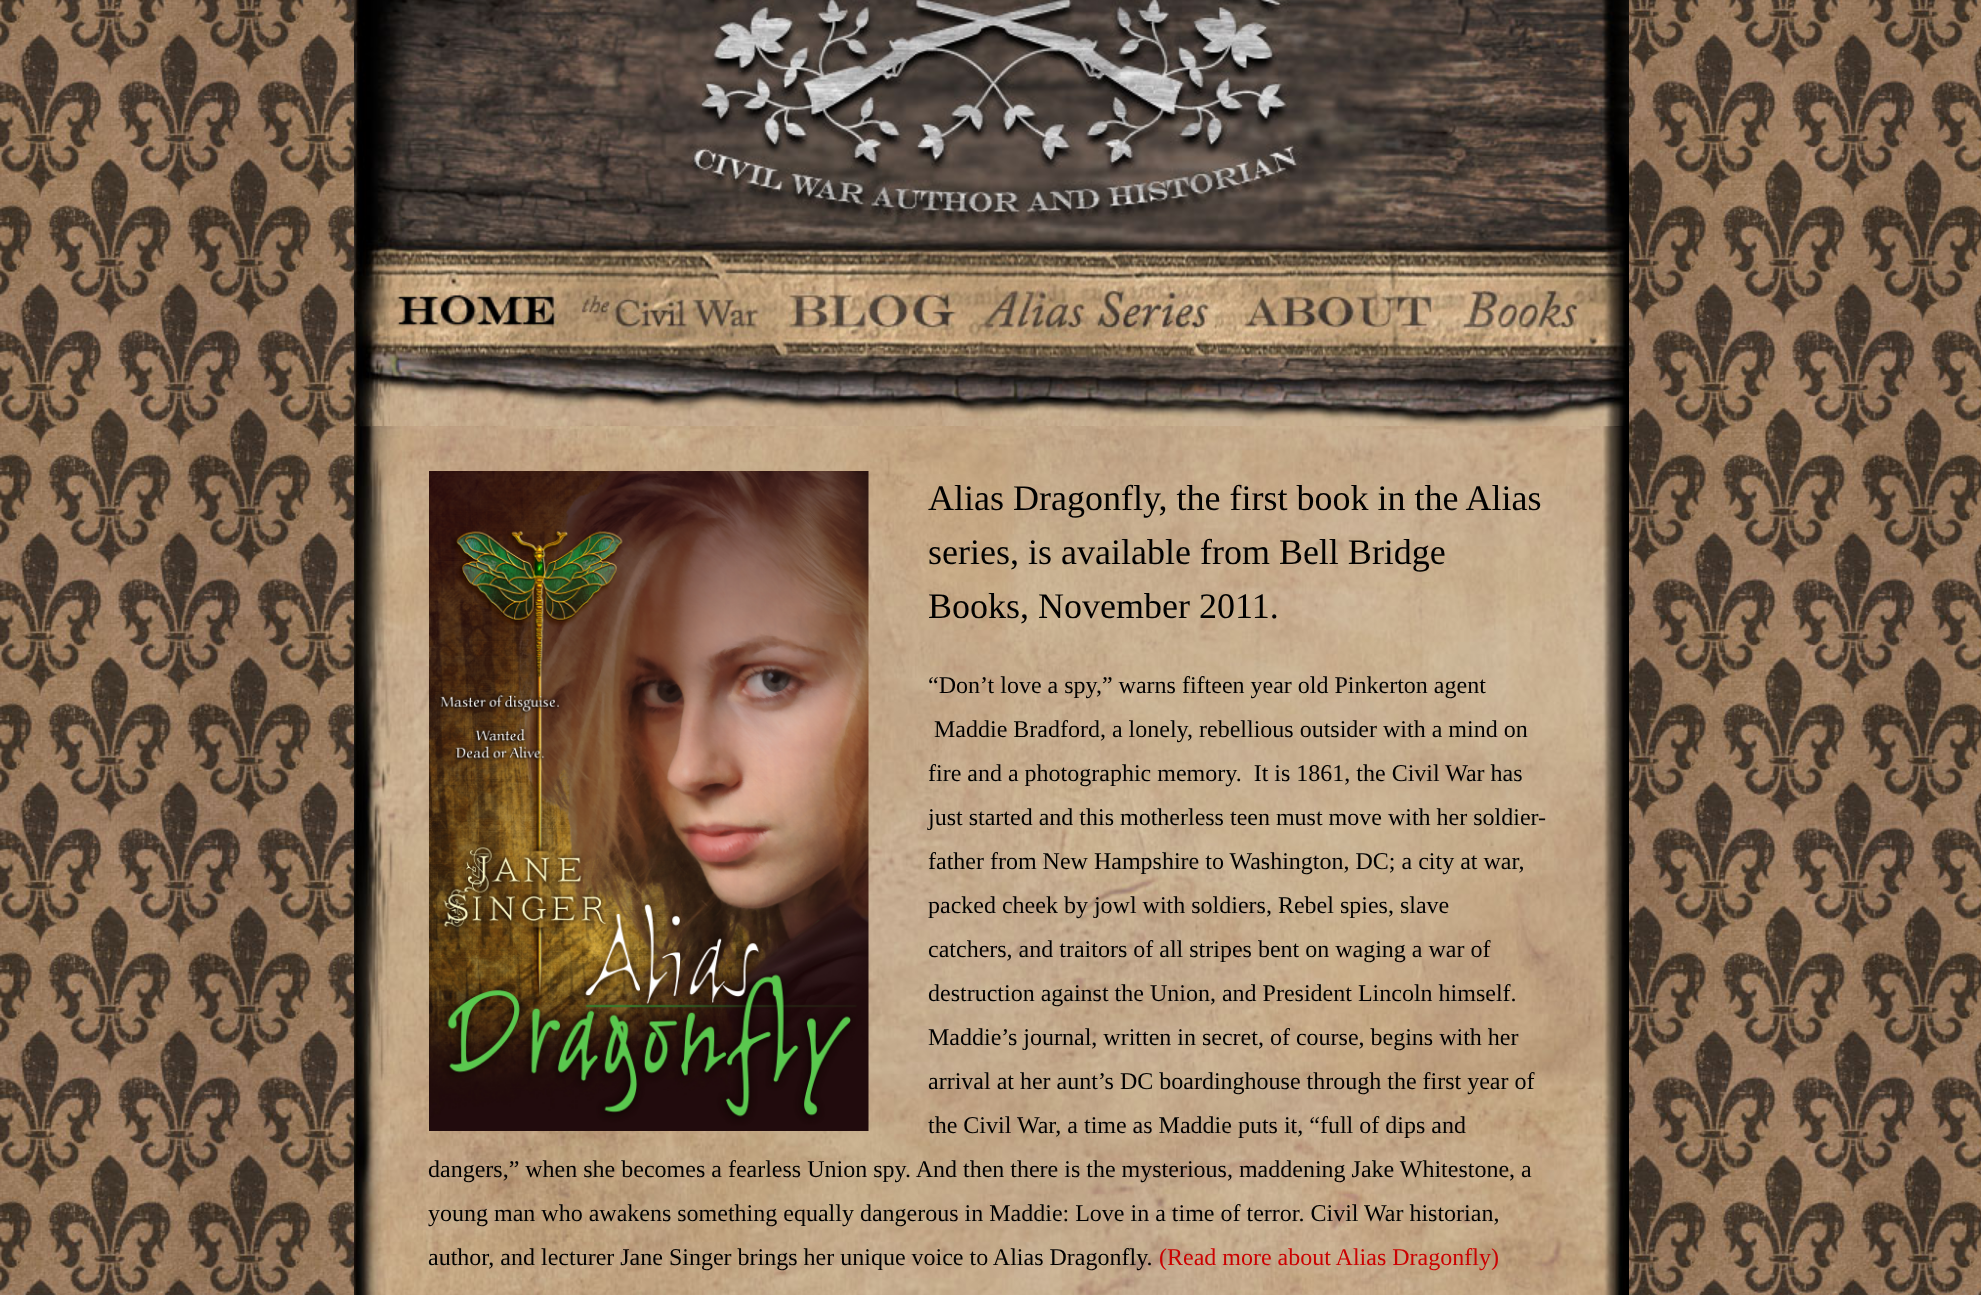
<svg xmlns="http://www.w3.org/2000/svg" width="1981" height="1295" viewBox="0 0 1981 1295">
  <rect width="100%" height="100%" fill="#fff"/>
  <image x="0" y="0" width="1981" height="1295" href="img/1.png"/>
  <image x="354" y="0" width="1275" height="426" href="img/2.png"/>
  <image x="397" y="295" width="157" height="30" href="img/3.png"/>
  <image x="354" y="426" width="1275" height="869" href="img/4.png"/>
  <image x="429" y="471" width="440" height="660" href="img/5.png"/>
  <g font-family="Liberation Serif" font-size="36" fill="#000">
    <text x="928" y="510">Alias Dragonfly, the first book in the Alias</text>
    <text x="928" y="564">series, is available from Bell Bridge</text>
    <text x="928" y="618">Books, November 2011.</text>
  </g>
  <g font-family="Liberation Serif" font-size="24" fill="#000">
    <text x="928" y="693">“Don’t love a spy,” warns fifteen year old Pinkerton agent</text>
    <text x="934" y="737">Maddie Bradford, a lonely, rebellious outsider with a mind on</text>
    <text x="928" y="781" xml:space="preserve">fire and a photographic memory.  It is 1861, the Civil War has</text>
    <text x="928" y="825">just started and this motherless teen must move with her soldier-</text>
    <text x="928" y="869">father from New Hampshire to Washington, DC; a city at war,</text>
    <text x="928" y="913">packed cheek by jowl with soldiers, Rebel spies, slave</text>
    <text x="928" y="957">catchers, and traitors of all stripes bent on waging a war of</text>
    <text x="928" y="1001">destruction against the Union, and President Lincoln himself.</text>
    <text x="928" y="1045">Maddie’s journal, written in secret, of course, begins with her</text>
    <text x="928" y="1089">arrival at her aunt’s DC boardinghouse through the first year of</text>
    <text x="928" y="1133">the Civil War, a time as Maddie puts it, “full of dips and</text>
    <text x="428" y="1177">dangers,” when she becomes a fearless Union spy. And then there is the mysterious, maddening Jake Whitestone, a</text>
    <text x="428" y="1221">young man who awakens something equally dangerous in Maddie: Love in a time of terror. Civil War historian,</text>
    <text x="428" y="1265">author, and lecturer Jane Singer brings her unique voice to Alias Dragonfly.</text>
  </g>
  <text x="1159" y="1265" font-family="Liberation Serif" font-size="24" fill="#c00">(Read more about Alias Dragonfly)</text>
</svg>
